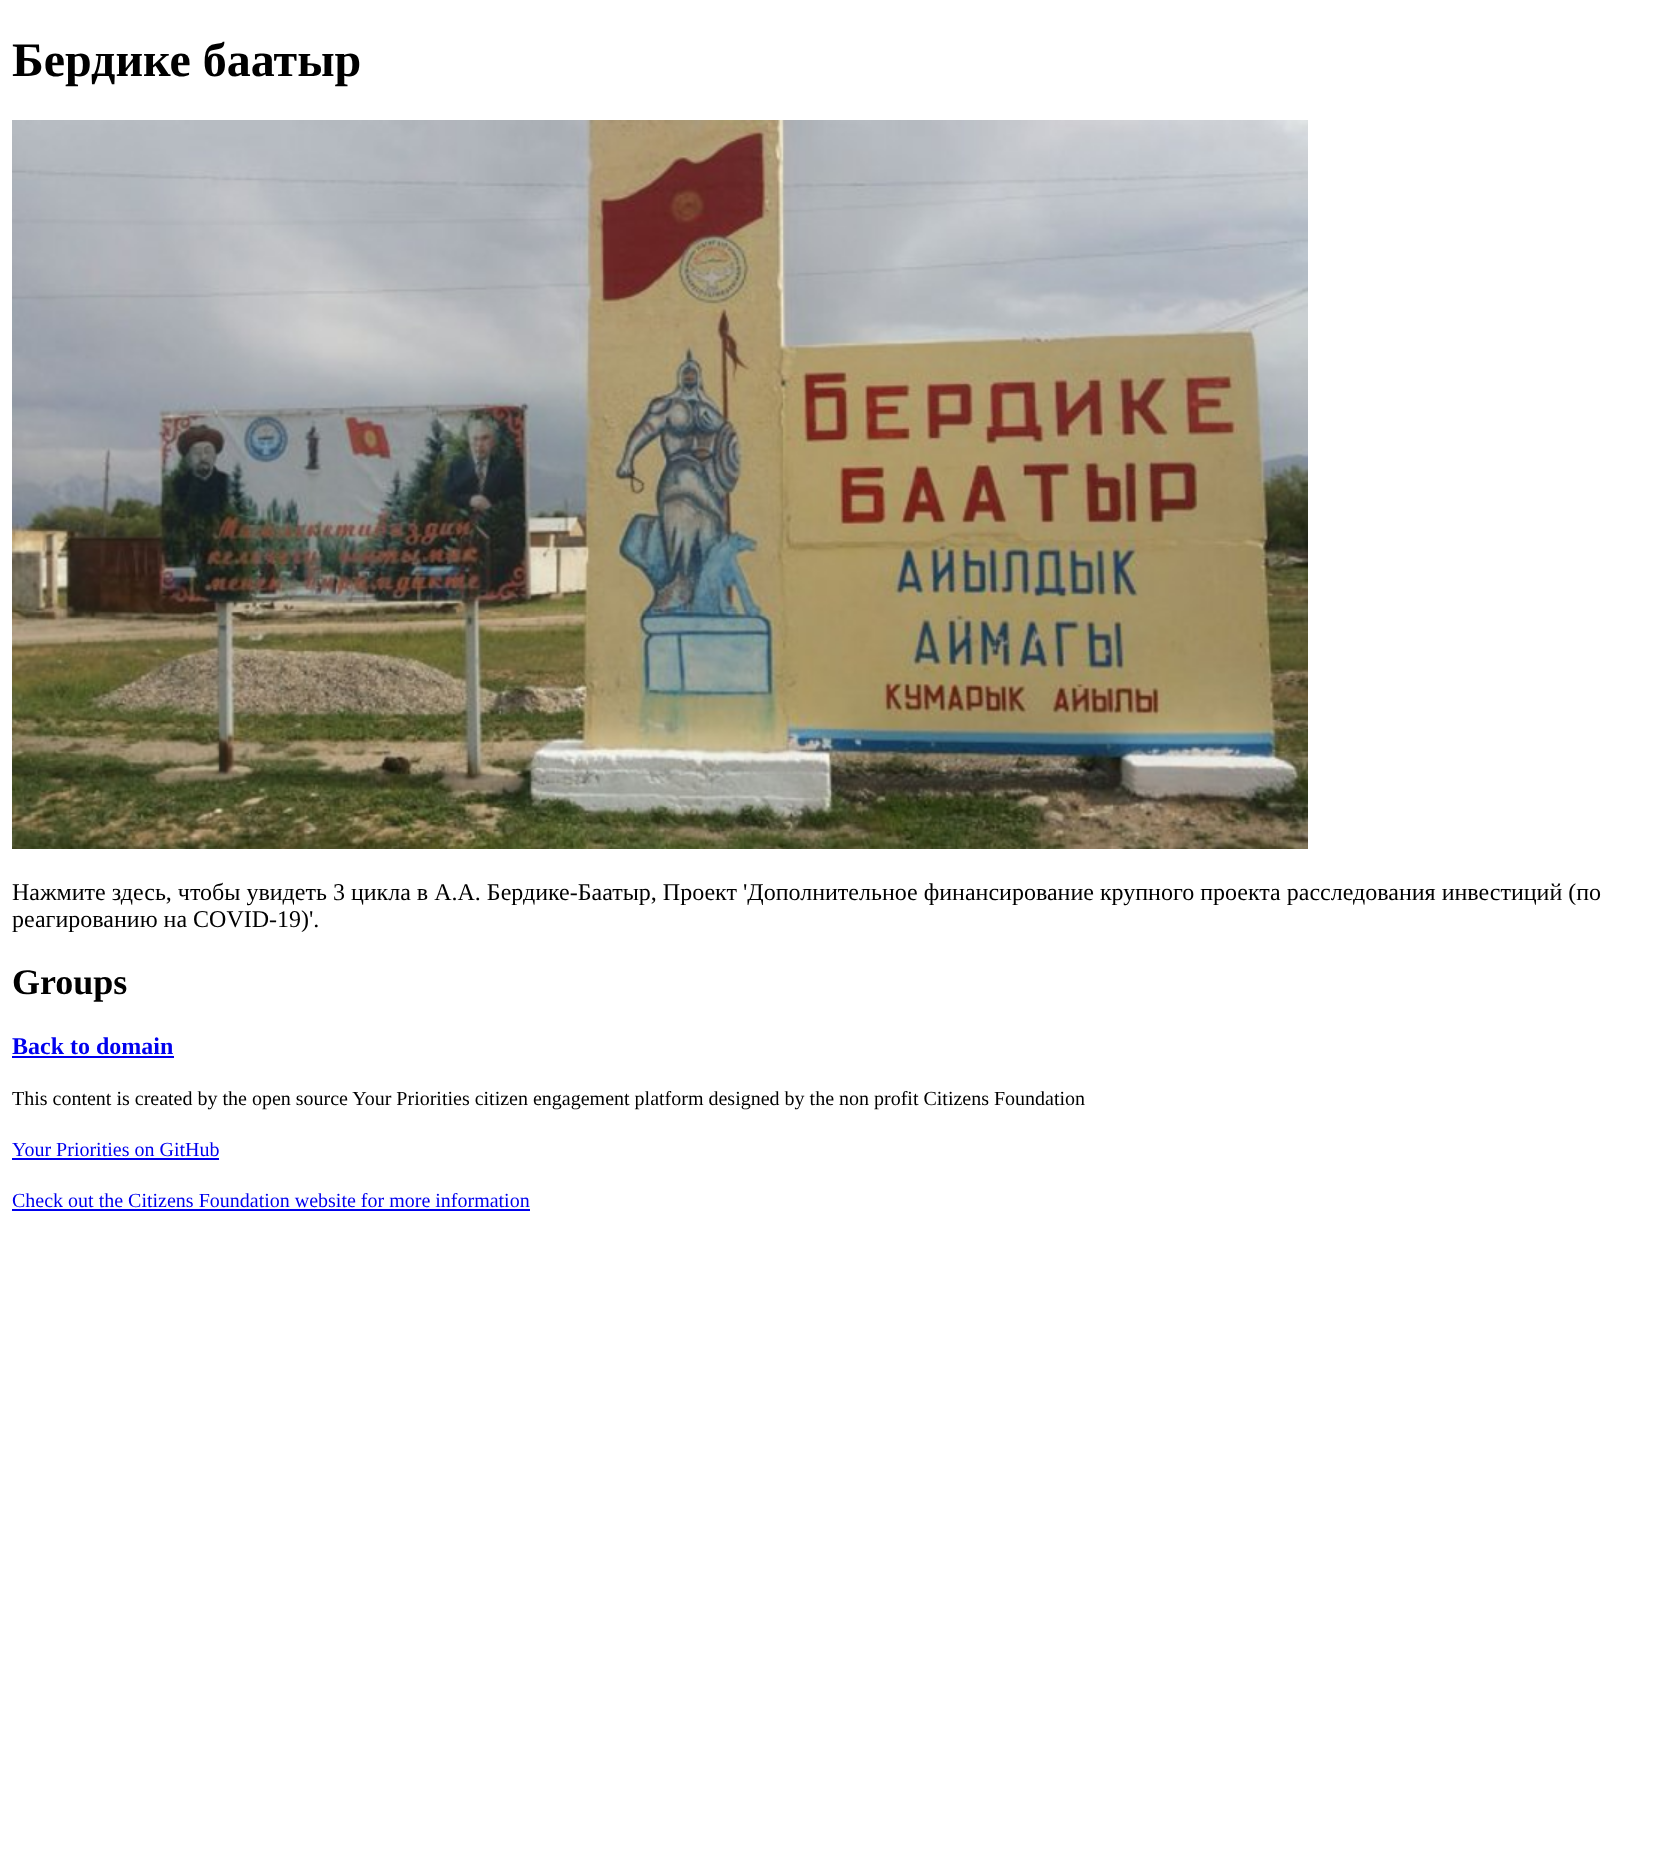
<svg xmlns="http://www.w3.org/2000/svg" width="1663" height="1850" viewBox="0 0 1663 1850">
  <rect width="100%" height="100%" fill="#fff"/>
  <image x="12" y="120" width="1296" height="729" href="img/1.png"/>
  <path d="M12 1056h162v2H12z" fill="#00e"/>
  <path d="M12 1158h207v2H12z" fill="#00e"/>
  <path d="M12 1209h518v2H12z" fill="#00e"/>
  <text x="12" y="76" font-family="Liberation Serif" font-size="48" font-weight="bold" fill="#000">Бердике баатыр</text>
  <g font-family="Liberation Serif" font-size="24" fill="#000">
    <text x="12" y="900">Нажмите здесь, чтобы увидеть 3 цикла в А.А. Бердике-Баатыр, Проект 'Дополнительное финансирование крупного проекта расследования инвестиций (по</text>
    <text x="12" y="927">реагированию на COVID-19)'.</text>
  </g>
  <text x="12" y="994" font-family="Liberation Serif" font-size="36" font-weight="bold" fill="#000">Groups</text>
  <text x="12" y="1054" font-family="Liberation Serif" font-size="24" font-weight="bold" fill="#00e">Back to domain</text>
  <text x="12" y="1105" font-family="Liberation Serif" font-size="20" fill="#000">This content is created by the open source Your Priorities citizen engagement platform designed by the non profit Citizens Foundation</text>
  <g font-family="Liberation Serif" font-size="20" fill="#00e">
    <text x="12" y="1156">Your Priorities on GitHub</text>
    <text x="12" y="1207">Check out the Citizens Foundation website for more information</text>
  </g>
</svg>
